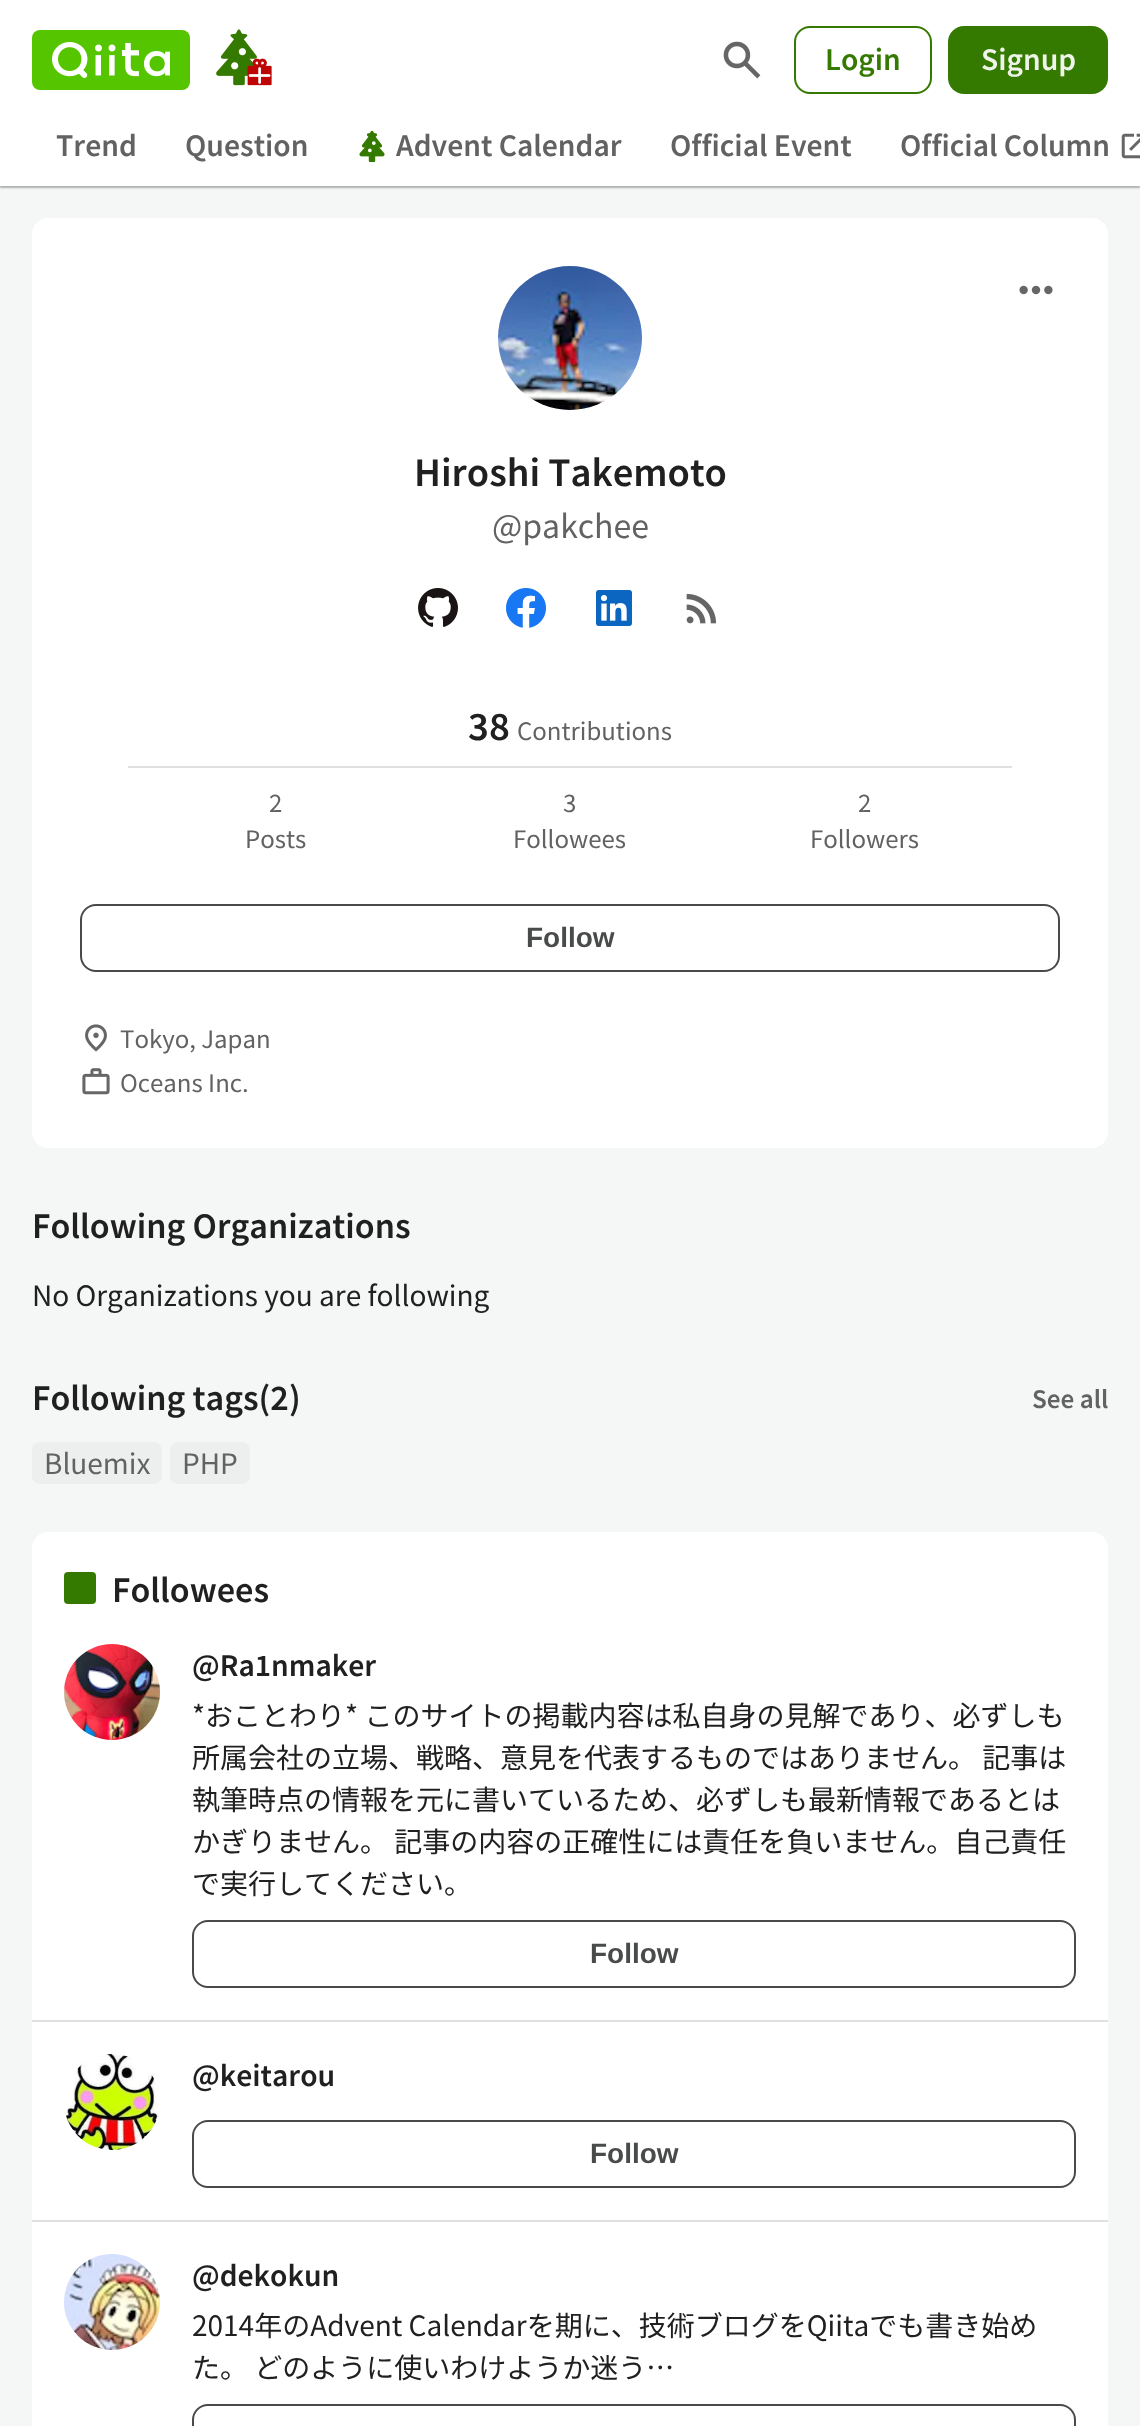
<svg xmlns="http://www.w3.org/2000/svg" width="1140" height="2426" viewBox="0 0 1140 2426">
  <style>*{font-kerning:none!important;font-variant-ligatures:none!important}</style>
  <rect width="100%" height="100%" fill="#f5f6f6"/>
  <path d="M-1 -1h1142v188H-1z" fill="none" stroke="#e1e2e2" stroke-width="2"/>
  <path d="M0 2h1140v186H0z" fill="#1e212140" filter="blur(1px)"/>
  <path d="M0 0h1140v186H0z" fill="#fff"/>
  <rect x="32" y="30" width="158" height="60" rx="8" fill="#55c500"/>
  <image x="52" y="42" width="118" height="36" href="img/1.png"/>
  <image x="216" y="29" width="56" height="57" href="img/2.png"/>
  <image x="723" y="41" width="38" height="38" href="img/3.png"/>
  <rect x="795" y="27" width="136" height="66" rx="15" fill="none" stroke="#357a00" stroke-width="2"/>
  <rect x="948" y="26" width="160" height="68" rx="16" fill="#357a00"/>
  <image x="359" y="130" width="26" height="32" href="img/4.png"/>
  <image x="1121" y="133" width="19" height="26" href="img/5.png"/>
  <rect x="32" y="218" width="1076" height="930" rx="16" fill="#fff"/>
  <image x="1019" y="285" width="34" height="10" href="img/6.png"/>
  <image x="498" y="266" width="144" height="144" href="img/7.png"/>
  <image x="418" y="588" width="40" height="39" href="img/8.png"/>
  <image x="506" y="588" width="40" height="40" href="img/9.png"/>
  <image x="596" y="590" width="36" height="36" href="img/10.png"/>
  <image x="686" y="593" width="31" height="31" href="img/11.png"/>
  <path d="M128 766h884v2H128z" fill="#e0e0e0"/>
  <rect x="81" y="905" width="978" height="66" rx="15" fill="none" stroke="#494b4b" stroke-width="2"/>
  <image x="85" y="1024" width="22" height="28" href="img/12.png"/>
  <image x="82" y="1068" width="28" height="27" href="img/13.png"/>
  <rect x="32" y="1442" width="130" height="42" rx="8" fill="#edeeee"/>
  <rect x="170" y="1442" width="80" height="42" rx="8" fill="#edeeee"/>
  <rect x="32" y="1532" width="1076" height="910" rx="16" fill="#fff"/>
  <rect x="64" y="1572" width="32" height="32" rx="4" fill="#357a00"/>
  <image x="64" y="1644" width="96" height="96" href="img/14.png"/>
  <rect x="193" y="1921" width="882" height="66" rx="15" fill="none" stroke="#494b4b" stroke-width="2"/>
  <path d="M32 2020h1076v2H32z" fill="#e0e0e0"/>
  <image x="65" y="2054" width="93" height="96" href="img/15.png"/>
  <rect x="193" y="2121" width="882" height="66" rx="15" fill="none" stroke="#494b4b" stroke-width="2"/>
  <path d="M32 2220h1076v2H32z" fill="#e0e0e0"/>
  <image x="64" y="2254" width="96" height="96" href="img/16.png"/>
  <rect x="193" y="2405" width="882" height="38" rx="15" fill="none" stroke="#494b4b" stroke-width="2"/>
  <text x="825" y="70" font-family="Noto Sans JP" font-size="28" font-weight="600" fill="#357a00">Login</text>
  <text x="981" y="70" font-family="Noto Sans JP" font-size="28" font-weight="600" fill="#eff4eb">Signup</text>
  <g font-family="Noto Sans JP" font-size="28" font-weight="600" fill="#626262">
    <text x="56" y="156">Trend</text>
    <text x="185" y="156">Question</text>
    <text x="396" y="156">Advent Calendar</text>
    <text x="670" y="156">Official Event</text>
    <text x="900" y="156">Official Column</text>
  </g>
  <text x="414" y="486" font-family="Noto Sans JP" font-size="36" font-weight="600" fill="#202020">Hiroshi Takemoto</text>
  <text x="492" y="538" font-family="Noto Sans JP" font-size="32" fill="#626262">@pakchee</text>
  <text x="468" y="740" font-family="Noto Sans JP" font-size="36" font-weight="600" fill="#202020">38</text>
  <g font-family="Noto Sans JP" font-size="24" fill="#626262">
    <text x="517" y="740">Contributions</text>
    <text x="269" y="812">2</text>
    <text x="245" y="848">Posts</text>
    <text x="563" y="812">3</text>
    <text x="513" y="848">Followees</text>
    <text x="858" y="812">2</text>
    <text x="810" y="848">Followers</text>
  </g>
  <text x="526" y="947" font-family="Liberation Sans" font-size="28" font-weight="bold" fill="#494b4b">Follow</text>
  <g font-family="Noto Sans JP" font-size="24" fill="#626262">
    <text x="120" y="1048">Tokyo, Japan</text>
    <text x="120" y="1092">Oceans Inc.</text>
  </g>
  <text x="32" y="1238" font-family="Noto Sans JP" font-size="32" font-weight="600" fill="#202020">Following Organizations</text>
  <text x="32" y="1306" font-family="Noto Sans JP" font-size="28" fill="#202020">No Organizations you are following</text>
  <text x="32" y="1410" font-family="Noto Sans JP" font-size="32" font-weight="600" fill="#202020">Following tags(2)</text>
  <text x="1032" y="1408" font-family="Noto Sans JP" font-size="24" font-weight="600" fill="#626262">See all</text>
  <g font-family="Noto Sans JP" font-size="28" fill="#626262">
    <text x="44" y="1474">Bluemix</text>
    <text x="182" y="1474">PHP</text>
  </g>
  <text x="112" y="1602" font-family="Noto Sans JP" font-size="32" font-weight="600" fill="#202020">Followees</text>
  <text x="192" y="1676" font-family="Noto Sans JP" font-size="28" font-weight="600" fill="#202020">@Ra1nmaker</text>
  <g font-family="Noto Sans JP" font-size="28" fill="#202020">
    <text x="192" y="1726">*おことわり* このサイトの掲載内容は私自身の見解であり、必ずしも</text>
    <text x="192" y="1768">所属会社の立場、戦略、意見を代表するものではありません。 記事は</text>
    <text x="192" y="1810">執筆時点の情報を元に書いているため、必ずしも最新情報であるとは</text>
    <text x="192" y="1852">かぎりません。 記事の内容の正確性には責任を負いません。自己責任</text>
    <text x="192" y="1894">で実行してください。</text>
  </g>
  <text x="590" y="1963" font-family="Liberation Sans" font-size="28" font-weight="bold" fill="#494b4b">Follow</text>
  <text x="192" y="2086" font-family="Noto Sans JP" font-size="28" font-weight="600" fill="#202020">@keitarou</text>
  <text x="590" y="2163" font-family="Liberation Sans" font-size="28" font-weight="bold" fill="#494b4b">Follow</text>
  <text x="192" y="2286" font-family="Noto Sans JP" font-size="28" font-weight="600" fill="#202020">@dekokun</text>
  <g font-family="Noto Sans JP" font-size="28" fill="#202020">
    <text x="192" y="2336">2014年のAdvent Calendarを期に、技術ブログをQiitaでも書き始め</text>
    <text x="192" y="2378">た。 どのように使いわけようか迷う…</text>
  </g>
</svg>
